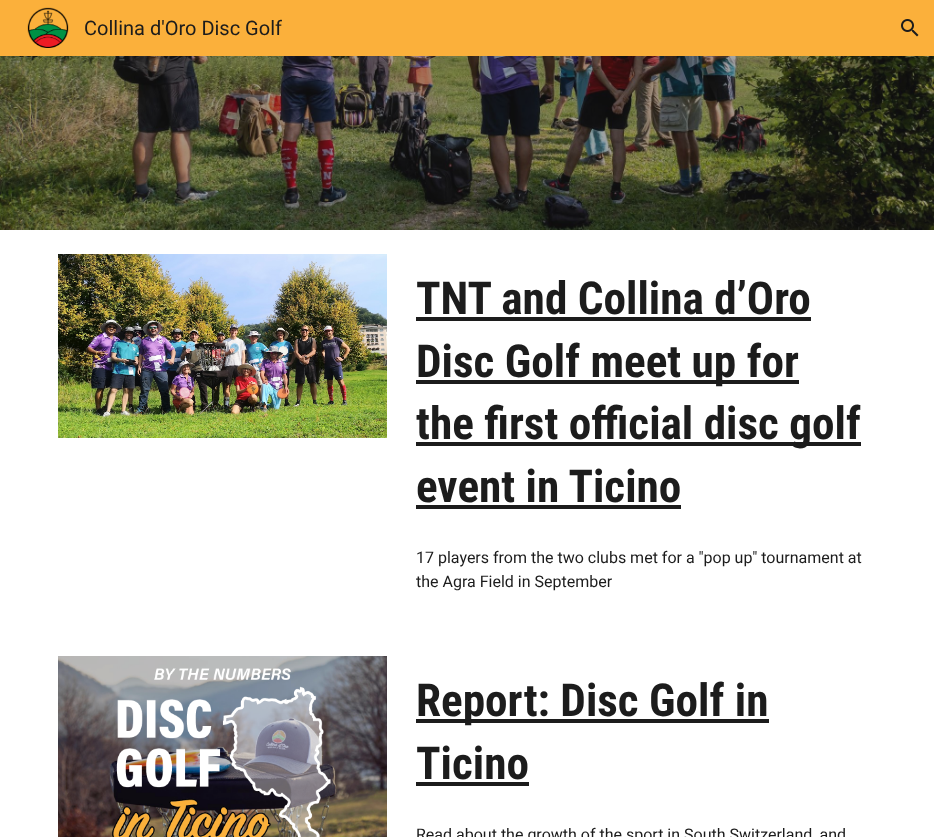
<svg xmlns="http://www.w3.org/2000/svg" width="934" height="837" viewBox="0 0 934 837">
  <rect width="100%" height="100%" fill="#fff"/>
  <path d="M0 0h934v56H0z" fill="#fbb03b"/>
  <image x="27" y="7" width="42" height="41" href="img/1.png"/>
  <image x="901" y="19" width="18" height="18" href="img/2.png"/>
  <image x="0" y="56" width="934" height="174" href="img/3.png"/>
  <image x="58" y="254" width="329" height="184" href="img/4.png"/>
  <path d="M416 317h395v4H416z" fill="#1c1c1c"/>
  <path d="M416 380h383v4H416z" fill="#1c1c1c"/>
  <path d="M416 442h445v4H416z" fill="#1c1c1c"/>
  <path d="M416 505h265v4H416z" fill="#1c1c1c"/>
  <image x="58" y="656" width="329" height="181" href="img/5.png"/>
  <path d="M416 719h353v4H416z" fill="#1c1c1c"/>
  <path d="M416 782h113v4H416z" fill="#1c1c1c"/>
  <text x="84" y="35" font-family="Roboto" font-size="20" fill="#1c1c1c">Collina d'Oro Disc Golf</text>
  <g font-family="Roboto Condensed" font-size="45.25" font-weight="bold" fill="#1c1c1c">
    <text x="416" y="314">TNT and Collina d’Oro</text>
    <text x="416" y="377">Disc Golf meet up for</text>
    <text x="416" y="439">the first official disc golf</text>
    <text x="416" y="502">event in Ticino</text>
  </g>
  <g font-family="Roboto" font-size="16" fill="#1c1c1c">
    <text x="416" y="563">17 players from the two clubs met for a "pop up" tournament at</text>
    <text x="416" y="587">the Agra Field in September</text>
  </g>
  <g font-family="Roboto Condensed" font-size="45.25" font-weight="bold" fill="#1c1c1c">
    <text x="416" y="716">Report: Disc Golf in</text>
    <text x="416" y="779">Ticino</text>
  </g>
  <text x="416" y="840" font-family="Roboto" font-size="16" fill="#1c1c1c">Read about the growth of the sport in South Switzerland, and</text>
</svg>
